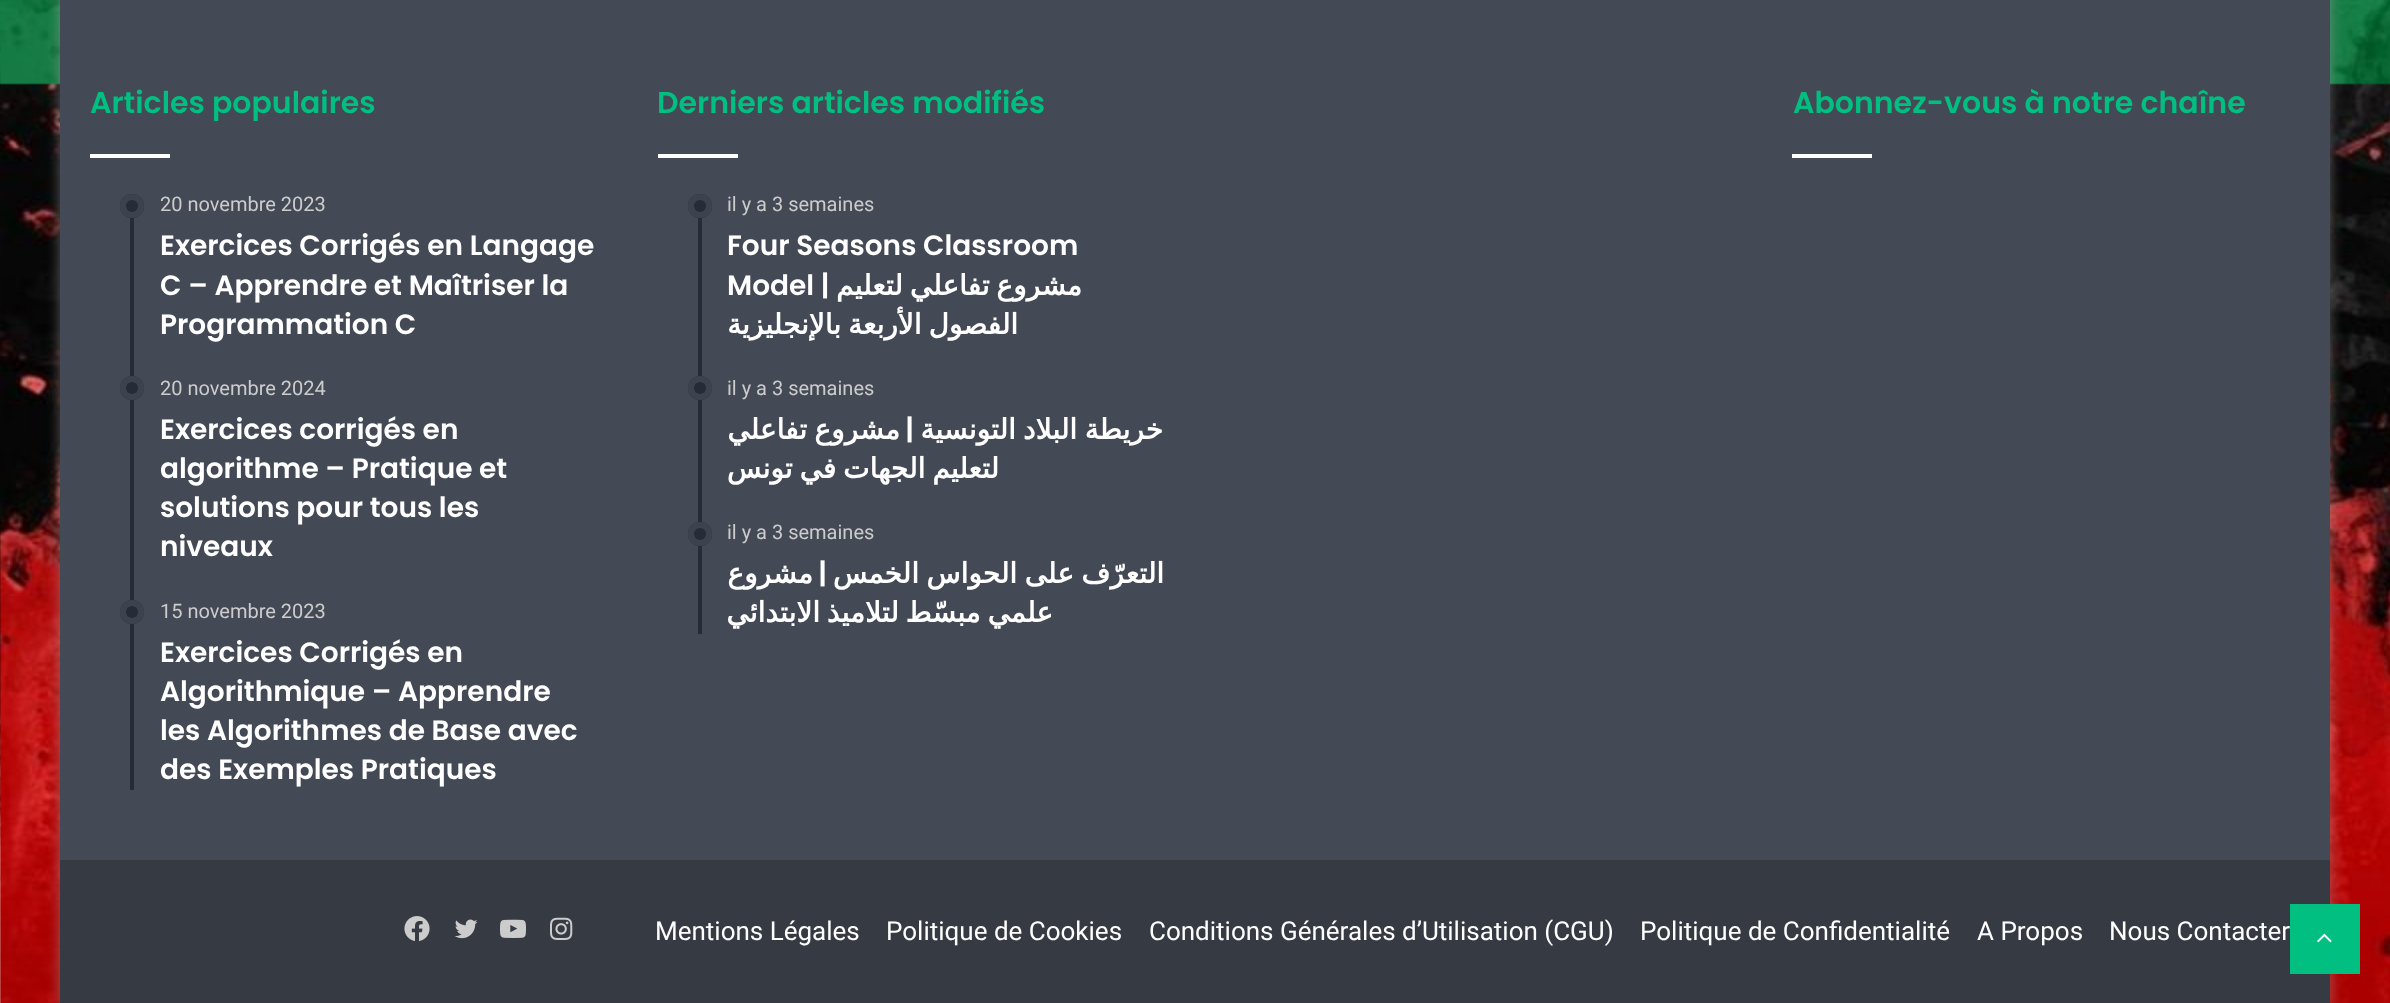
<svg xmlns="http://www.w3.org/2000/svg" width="2390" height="1003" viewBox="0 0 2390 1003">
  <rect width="100%" height="100%" fill="#fff"/>
  <image x="0" y="0" width="2390" height="1003" href="img/1.png"/>
  <path d="M60 -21h2270v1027H60z" fill="#ababab80" filter="blur(7px)"/>
  <path d="M60 0h2270v860H60z" fill="#434955"/>
  <path d="M90 154h80v4H90z" fill="#fff"/>
  <path d="M130 194h4v596H130z" fill="#252b37"/>
  <circle cx="132" cy="206" r="12" fill="#252b37"/>
  <circle cx="132" cy="206" r="9" fill="none" stroke="#434955cc" stroke-width="6"/>
  <circle cx="132" cy="388" r="12" fill="#252b37"/>
  <circle cx="132" cy="388" r="9" fill="none" stroke="#434955cc" stroke-width="6"/>
  <circle cx="132" cy="612" r="12" fill="#252b37"/>
  <circle cx="132" cy="612" r="9" fill="none" stroke="#434955cc" stroke-width="6"/>
  <path d="M658 154h80v4H658z" fill="#fff"/>
  <path d="M698 194h4v440H698z" fill="#252b37"/>
  <circle cx="700" cy="206" r="12" fill="#252b37"/>
  <circle cx="700" cy="206" r="9" fill="none" stroke="#434955cc" stroke-width="6"/>
  <circle cx="700" cy="388" r="12" fill="#252b37"/>
  <circle cx="700" cy="388" r="9" fill="none" stroke="#434955cc" stroke-width="6"/>
  <circle cx="700" cy="534" r="12" fill="#252b37"/>
  <circle cx="700" cy="534" r="9" fill="none" stroke="#434955cc" stroke-width="6"/>
  <path d="M1792 154h80v4H1792z" fill="#fff"/>
  <path d="M60 860h2270v143H60z" fill="#363a42"/>
  <image x="404" y="916" width="26" height="25" href="img/2.png"/>
  <image x="454" y="919" width="24" height="20" href="img/3.png"/>
  <image x="500" y="919" width="26" height="19" href="img/4.png"/>
  <image x="550" y="917" width="23" height="23" href="img/5.png"/>
  <path d="M2290 904h70v70H2290z" fill="#00bf80"/>
  <image x="2317" y="933" width="15" height="10" href="img/6.png"/>
  <text x="90" y="113" font-family="Poppins" font-size="30" font-weight="600" fill="#00bf80">Articles populaires</text>
  <text x="160" y="211" font-family="Roboto" font-size="20" fill="#ccc">20 novembre 2023</text>
  <g font-family="Poppins" font-size="28" font-weight="600" fill="#fff">
    <text x="160" y="255">Exercices Corrigés en Langage</text>
    <text x="160" y="295">C – Apprendre et Maîtriser la</text>
    <text x="160" y="334">Programmation C</text>
  </g>
  <text x="160" y="395" font-family="Roboto" font-size="20" fill="#ccc">20 novembre 2024</text>
  <g font-family="Poppins" font-size="28" font-weight="600" fill="#fff">
    <text x="160" y="439">Exercices corrigés en</text>
    <text x="160" y="478">algorithme – Pratique et</text>
    <text x="160" y="517">solutions pour tous les</text>
    <text x="160" y="556">niveaux</text>
  </g>
  <text x="160" y="618" font-family="Roboto" font-size="20" fill="#ccc">15 novembre 2023</text>
  <g font-family="Poppins" font-size="28" font-weight="600" fill="#fff">
    <text x="160" y="662">Exercices Corrigés en</text>
    <text x="160" y="701">Algorithmique – Apprendre</text>
    <text x="160" y="740">les Algorithmes de Base avec</text>
    <text x="160" y="779">des Exemples Pratiques</text>
  </g>
  <text x="657" y="113" font-family="Poppins" font-size="30" font-weight="600" fill="#00bf80">Derniers articles modifiés</text>
  <text x="727" y="211" font-family="Roboto" font-size="20" fill="#ccc">il y a 3 semaines</text>
  <g font-family="Poppins" font-size="28" font-weight="600" fill="#fff">
    <text x="727" y="255">Four Seasons Classroom</text>
    <text x="727" y="295">Model |</text>
  </g>
  <g font-family="DejaVu Sans" font-size="28" font-weight="bold" direction="rtl" fill="#fff">
    <text x="1082" y="295" word-spacing="-2">مشروع تفاعلي لتعليم</text>
    <text x="1018" y="334" word-spacing="-2">الفصول الأربعة بالإنجليزية</text>
  </g>
  <text x="727" y="395" font-family="Roboto" font-size="20" fill="#ccc">il y a 3 semaines</text>
  <text x="900" y="439" word-spacing="-1.5" font-family="DejaVu Sans" font-size="28" font-weight="bold" direction="rtl" fill="#fff">مشروع تفاعلي</text>
  <text x="914" y="439" font-family="Poppins" font-size="28" font-weight="600" direction="rtl" fill="#fff">|</text>
  <g font-family="DejaVu Sans" font-size="28" font-weight="bold" direction="rtl" fill="#fff">
    <text x="1163" y="439" word-spacing="-1.5">خريطة البلاد التونسية</text>
    <text x="999" y="478" word-spacing="-2">لتعليم الجهات في تونس</text>
  </g>
  <text x="727" y="539" font-family="Roboto" font-size="20" fill="#ccc">il y a 3 semaines</text>
  <text x="813" y="583" font-family="DejaVu Sans" font-size="28" font-weight="bold" direction="rtl" fill="#fff">مشروع</text>
  <text x="827" y="583" font-family="Poppins" font-size="28" font-weight="600" direction="rtl" fill="#fff">|</text>
  <g font-family="DejaVu Sans" font-size="28" font-weight="bold" direction="rtl" fill="#fff">
    <text x="1164" y="583" word-spacing="-1.5">التعرّف على الحواس الخمس</text>
    <text x="1053" y="622" word-spacing="-2">علمي مبسّط لتلاميذ الابتدائي</text>
  </g>
  <text x="1793" y="113" font-family="Poppins" font-size="30" font-weight="600" fill="#00bf80">Abonnez-vous à notre chaîne</text>
  <g font-family="Roboto" font-size="26" fill="#fff">
    <text x="655" y="940">Mentions Légales</text>
    <text x="886" y="940">Politique de Cookies</text>
    <text x="1149" y="940">Conditions Générales d’Utilisation (CGU)</text>
    <text x="1640" y="940">Politique de Confidentialité</text>
    <text x="1977" y="940">A Propos</text>
    <text x="2109" y="940">Nous Contacter</text>
  </g>
</svg>
